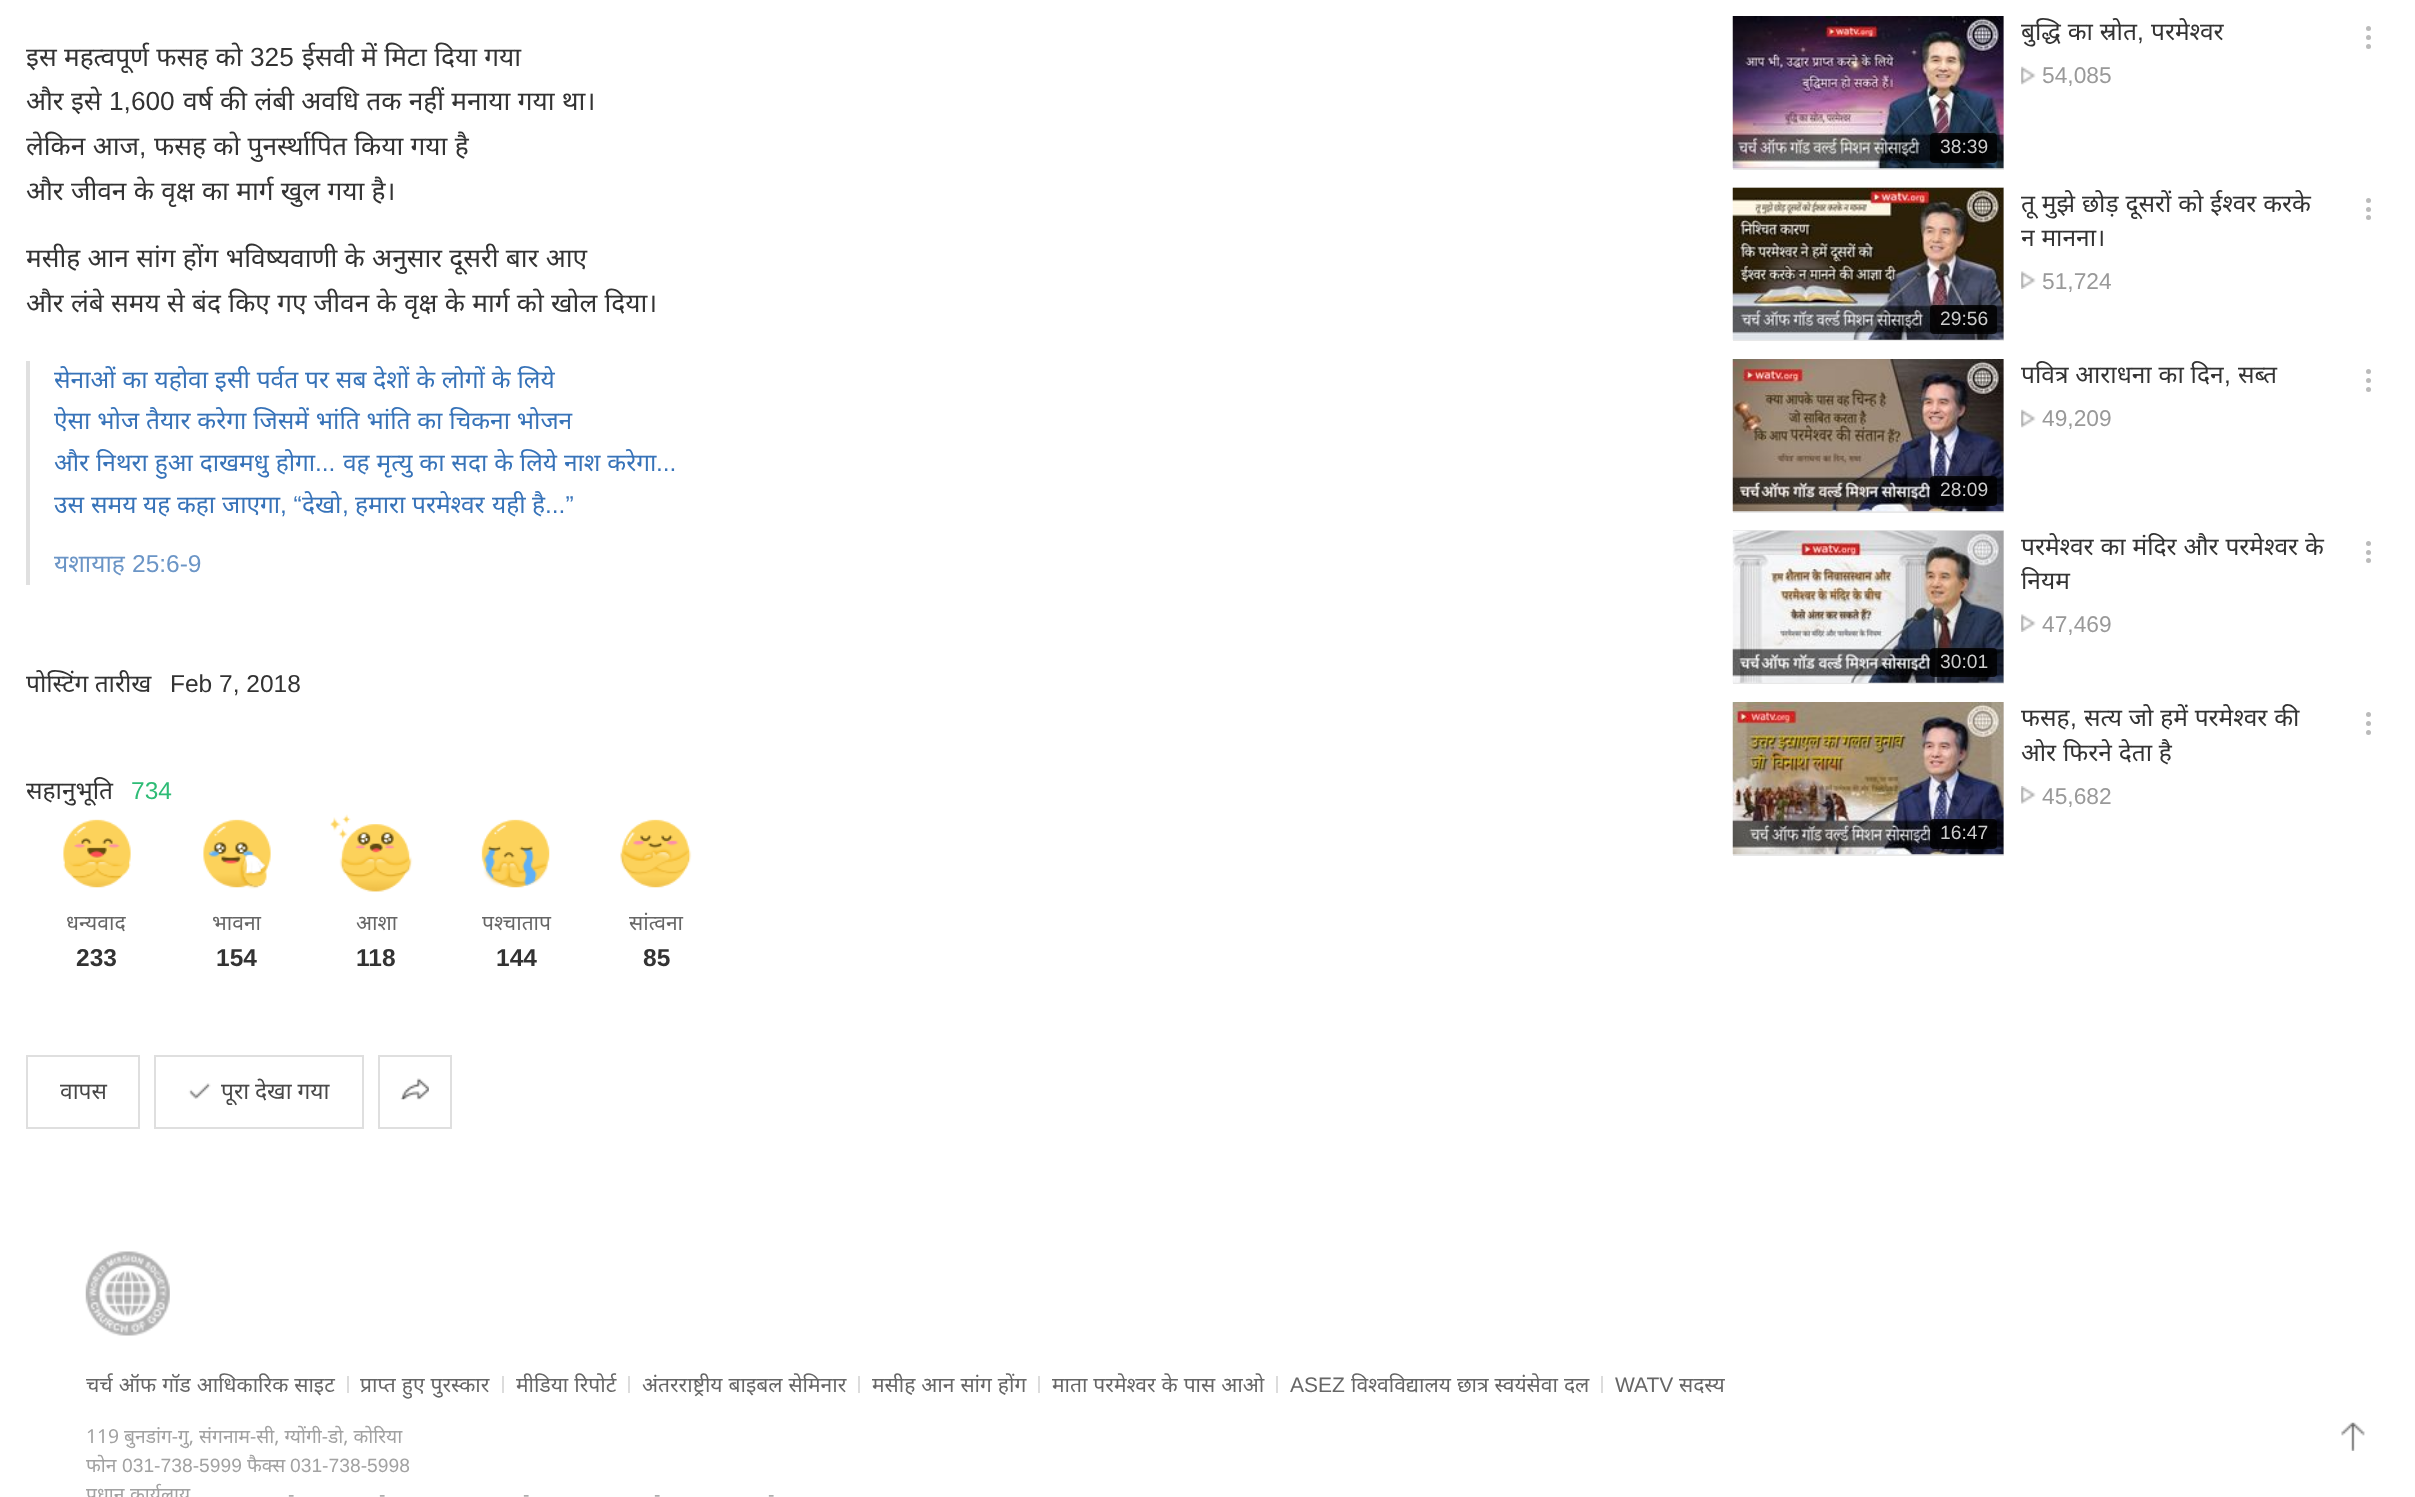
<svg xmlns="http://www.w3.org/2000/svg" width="2415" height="1497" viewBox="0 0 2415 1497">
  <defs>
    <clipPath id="clip1"><path d="M26 0h1225v585H26z"/></clipPath>
    <clipPath id="clip2"><path d="M26 655h1663v47H26z"/></clipPath>
    <clipPath id="clip3"><path d="M2021 16h310v35H2021z"/></clipPath>
    <clipPath id="clip4"><path d="M2021 187h310v69H2021z"/></clipPath>
  </defs>
  <rect width="100%" height="100%" fill="#fff"/>
  <path d="M26 361h4v224H26z" fill="#e0e0e0"/>
  <image x="63" y="819" width="68" height="69" href="img/1.png"/>
  <image x="203" y="819" width="68" height="70" href="img/2.png"/>
  <image x="330" y="814" width="83" height="78" href="img/3.png"/>
  <image x="481" y="819" width="69" height="69" href="img/4.png"/>
  <image x="620" y="819" width="72" height="69" href="img/5.png"/>
  <path d="M27 1056h112v72H27z" fill="none" stroke="#dfdfdf" stroke-width="2"/>
  <path d="M155 1056h208v72H155z" fill="none" stroke="#dfdfdf" stroke-width="2"/>
  <image x="188" y="1083" width="23" height="16" href="img/6.png"/>
  <path d="M379 1056h72v72H379z" fill="none" stroke="#dfdfdf" stroke-width="2"/>
  <image x="400" y="1078" width="29" height="22" href="img/7.png"/>
  <image x="2021" y="66" width="15" height="19" href="img/8.png"/>
  <circle cx="2368.5" cy="37.5" r="2.5" fill="#bbb"/>
  <circle cx="2368.5" cy="28.5" r="2.5" fill="#bbb"/>
  <circle cx="2368.5" cy="46.5" r="2.5" fill="#bbb"/>
  <path d="M1733 16h271v154H1733z" fill="#e8e8e8"/>
  <image x="1732" y="16" width="272" height="153" href="img/9.png"/>
  <rect x="1930" y="133" width="67" height="30" rx="4" fill="#000000cc"/>
  <image x="2021" y="271" width="15" height="18" href="img/10.png"/>
  <circle cx="2368.5" cy="209.5" r="2.5" fill="#bbb"/>
  <circle cx="2368.5" cy="200.5" r="2.5" fill="#bbb"/>
  <circle cx="2368.5" cy="217.5" r="2.5" fill="#bbb"/>
  <path d="M1733 187h271v154H1733z" fill="#e8e8e8"/>
  <image x="1732" y="187" width="272" height="153" href="img/11.png"/>
  <rect x="1930" y="305" width="67" height="29" rx="4" fill="#000000cc"/>
  <image x="2021" y="409" width="15" height="19" href="img/8.png"/>
  <circle cx="2368.5" cy="380.5" r="2.5" fill="#bbb"/>
  <circle cx="2368.5" cy="371.5" r="2.5" fill="#bbb"/>
  <circle cx="2368.5" cy="389.5" r="2.5" fill="#bbb"/>
  <path d="M1733 359h271v154H1733z" fill="#e8e8e8"/>
  <image x="1732" y="359" width="272" height="153" href="img/12.png"/>
  <rect x="1930" y="476" width="67" height="30" rx="4" fill="#000000cc"/>
  <image x="2021" y="614" width="15" height="18" href="img/10.png"/>
  <circle cx="2368.5" cy="552.5" r="2.5" fill="#bbb"/>
  <circle cx="2368.5" cy="543.5" r="2.5" fill="#bbb"/>
  <circle cx="2368.5" cy="560.5" r="2.5" fill="#bbb"/>
  <path d="M1733 530h271v154H1733z" fill="#e8e8e8"/>
  <image x="1732" y="530" width="272" height="153" href="img/13.png"/>
  <rect x="1930" y="648" width="67" height="29" rx="4" fill="#000000cc"/>
  <image x="2021" y="786" width="15" height="18" href="img/14.png"/>
  <circle cx="2368.5" cy="723.5" r="2.5" fill="#bbb"/>
  <circle cx="2368.5" cy="714.5" r="2.5" fill="#bbb"/>
  <circle cx="2368.5" cy="732.5" r="2.5" fill="#bbb"/>
  <path d="M1733 702h271v154H1733z" fill="#e8e8e8"/>
  <image x="1732" y="702" width="272" height="153" href="img/15.png"/>
  <rect x="1930" y="819" width="67" height="30" rx="4" fill="#000000cc"/>
  <image x="85" y="1251" width="85" height="85" href="img/16.png"/>
  <path d="M347 1376h2v17H347z" fill="#dcdcdc"/>
  <path d="M502 1376h2v17H502z" fill="#dcdcdc"/>
  <path d="M628 1376h2v17H628z" fill="#dcdcdc"/>
  <path d="M858 1376h2v17H858z" fill="#dcdcdc"/>
  <path d="M1038 1376h2v17H1038z" fill="#dcdcdc"/>
  <path d="M1276 1376h2v17H1276z" fill="#dcdcdc"/>
  <path d="M1601 1376h2v17H1601z" fill="#dcdcdc"/>
  <image x="2341" y="1422" width="24" height="29" href="img/17.png"/>
  <text x="26" y="66" word-spacing="0.5" font-family="Noto Sans" font-size="26.25" fill="#333">इस महत्वपूर्ण फसह को</text>
  <text x="250" y="66" font-family="Liberation Sans" font-size="26.25" fill="#333">325</text>
  <g font-family="Noto Sans" font-size="26.25" fill="#333">
    <text x="302" y="66" word-spacing="0.5">ईसवी में मिटा दिया गया</text>
    <text x="26" y="110" word-spacing="0.5">और इसे</text>
  </g>
  <text x="109" y="110" font-family="Liberation Sans" font-size="26.25" fill="#333">1,600</text>
  <text x="183" y="110" word-spacing="0.5" font-family="Noto Sans" font-size="26.25" fill="#333">वर्ष की लंबी अवधि तक नहीं मनाया गया था।</text>
  <g clip-path="url(#clip1)">
    <text x="26" y="155" word-spacing="0.5" font-family="Noto Sans" font-size="26.25" fill="#333">लेकिन आज</text>
  </g>
  <text x="139" y="155" font-family="Liberation Sans" font-size="26.25" fill="#333">,</text>
  <g font-family="Noto Sans" font-size="26.25" fill="#333">
    <text x="154" y="155" word-spacing="0.5">फसह को पुनर्स्थापित किया गया है</text>
    <text x="26" y="200" word-spacing="0.5">और जीवन के वृक्ष का मार्ग खुल गया है।</text>
    <text x="26" y="267" word-spacing="0.5">मसीह आन सांग होंग भविष्यवाणी के अनुसार दूसरी बार आए</text>
    <text x="26" y="312" word-spacing="0.5">और लंबे समय से बंद किए गए जीवन के वृक्ष के मार्ग को खोल दिया।</text>
  </g>
  <g font-family="Noto Sans" font-size="24.5" fill="#3773b9">
    <text x="54" y="388" word-spacing="0.5">सेनाओं का यहोवा इसी पर्वत पर सब देशों के लोगों के लिये</text>
    <text x="54" y="429" word-spacing="0.5">ऐसा भोज तैयार करेगा जिसमें भांति भांति का चिकना भोजन</text>
    <text x="54" y="471" word-spacing="0.5">और निथरा हुआ दाखमधु होगा</text>
  </g>
  <text x="315" y="471" font-family="Liberation Sans" font-size="24.5" fill="#3773b9">...</text>
  <text x="343" y="471" word-spacing="0.5" font-family="Noto Sans" font-size="24.5" fill="#3773b9">वह मृत्यु का सदा के लिये नाश करेगा</text>
  <text x="656" y="471" font-family="Liberation Sans" font-size="24.5" fill="#3773b9">...</text>
  <g font-family="Noto Sans" font-size="24.5" fill="#3773b9">
    <text x="412" y="513">परमेश्वर</text>
    <text x="492" y="513">यही</text>
    <text x="532" y="513">है</text>
    <text x="54" y="513">उस</text>
    <text x="91" y="513">समय</text>
    <text x="143" y="513">यह</text>
    <text x="177" y="513">कहा</text>
    <text x="222" y="513">जाएगा</text>
  </g>
  <text x="280" y="513" font-family="Liberation Sans" font-size="24.5" fill="#3773b9">, “</text>
  <text x="302" y="513" font-family="Noto Sans" font-size="24.5" fill="#3773b9">देखो</text>
  <text x="342" y="513" font-family="Liberation Sans" font-size="24.5" fill="#3773b9">,</text>
  <text x="355" y="513" font-family="Noto Sans" font-size="24.5" fill="#3773b9">हमारा</text>
  <text x="545" y="513" font-family="Liberation Sans" font-size="24.5" fill="#3773b9">...”</text>
  <text x="54" y="572" font-family="Noto Sans" font-size="24.5" fill="#6b95c6">यशायाह</text>
  <text x="132" y="572" font-family="Liberation Sans" font-size="24.5" fill="#6b95c6">25:6-9</text>
  <g clip-path="url(#clip2)">
    <text x="26" y="692" font-family="Noto Sans" font-size="24.5" fill="#333">पोस्टिंग तारीख</text>
  </g>
  <text x="170" y="692" font-family="Liberation Sans" font-size="24.5" fill="#333">Feb 7, 2018</text>
  <text x="26" y="799" font-family="Noto Sans" font-size="24.5" fill="#333">सहानुभूति</text>
  <text x="131" y="799" font-family="Liberation Sans" font-size="24.5" fill="#2ebc76">734</text>
  <text x="66" y="930" font-family="Noto Sans" font-size="21" fill="#666">धन्यवाद</text>
  <text x="76" y="966" font-family="Liberation Sans" font-size="24.5" font-weight="bold" fill="#333">233</text>
  <text x="212" y="930" font-family="Noto Sans" font-size="21" fill="#666">भावना</text>
  <text x="216" y="966" font-family="Liberation Sans" font-size="24.5" font-weight="bold" fill="#333">154</text>
  <text x="356" y="930" font-family="Noto Sans" font-size="21" fill="#666">आशा</text>
  <text x="356" y="966" font-family="Liberation Sans" font-size="24.5" font-weight="bold" fill="#333">118</text>
  <text x="482" y="930" font-family="Noto Sans" font-size="21" fill="#666">पश्चाताप</text>
  <text x="496" y="966" font-family="Liberation Sans" font-size="24.5" font-weight="bold" fill="#333">144</text>
  <text x="629" y="930" font-family="Noto Sans" font-size="21" fill="#666">सांत्वना</text>
  <text x="643" y="966" font-family="Liberation Sans" font-size="24.5" font-weight="bold" fill="#333">85</text>
  <g font-family="Noto Sans" font-size="22.75" fill="#484848">
    <text x="60" y="1099">वापस</text>
    <text x="221" y="1099">पूरा देखा गया</text>
  </g>
  <g clip-path="url(#clip3)">
    <text x="2021" y="40" word-spacing="0.5" font-family="Noto Sans" font-size="24.5" fill="#333">बुद्धि का स्रोत</text>
  </g>
  <text x="2137" y="40" font-family="Liberation Sans" font-size="24.5" fill="#333">,</text>
  <text x="2151" y="40" font-family="Noto Sans" font-size="24.5" fill="#333">परमेश्वर</text>
  <text x="2042" y="83" font-family="Liberation Sans" font-size="22.75" fill="#999">54,085</text>
  <text x="1940" y="153" font-family="Liberation Sans" font-size="19.25" fill="#cdcdcd">38:39</text>
  <g clip-path="url(#clip4)">
    <text x="2021" y="212" word-spacing="0.5" font-family="Noto Sans" font-size="24.5" fill="#333">तू मुझे छोड़ दूसरों को ईश्वर करके</text>
  </g>
  <text x="2021" y="246" word-spacing="0.5" font-family="Noto Sans" font-size="24.5" fill="#333">न मानना।</text>
  <text x="2042" y="289" font-family="Liberation Sans" font-size="22.75" fill="#999">51,724</text>
  <text x="1940" y="325" font-family="Liberation Sans" font-size="19.25" fill="#cdcdcd">29:56</text>
  <text x="2021" y="383" word-spacing="0.5" font-family="Noto Sans" font-size="24.5" fill="#333">पवित्र आराधना का दिन</text>
  <text x="2224" y="383" font-family="Liberation Sans" font-size="24.5" fill="#333">,</text>
  <text x="2238" y="383" font-family="Noto Sans" font-size="24.5" fill="#333">सब्त</text>
  <text x="2042" y="426" font-family="Liberation Sans" font-size="22.75" fill="#999">49,209</text>
  <text x="1940" y="496" font-family="Liberation Sans" font-size="19.25" fill="#cdcdcd">28:09</text>
  <g font-family="Noto Sans" font-size="24.5" fill="#333">
    <text x="2021" y="555" word-spacing="0.5">परमेश्वर का मंदिर और परमेश्वर के</text>
    <text x="2021" y="589">नियम</text>
  </g>
  <text x="2042" y="632" font-family="Liberation Sans" font-size="22.75" fill="#999">47,469</text>
  <text x="1940" y="668" font-family="Liberation Sans" font-size="19.25" fill="#cdcdcd">30:01</text>
  <text x="2021" y="726" font-family="Noto Sans" font-size="24.5" fill="#333">फसह</text>
  <text x="2070" y="726" font-family="Liberation Sans" font-size="24.5" fill="#333">,</text>
  <g font-family="Noto Sans" font-size="24.5" fill="#333">
    <text x="2084" y="726" word-spacing="0.5">सत्य जो हमें परमेश्वर की</text>
    <text x="2021" y="761" word-spacing="0.5">ओर फिरने देता है</text>
  </g>
  <text x="2042" y="804" font-family="Liberation Sans" font-size="22.75" fill="#999">45,682</text>
  <text x="1940" y="839" font-family="Liberation Sans" font-size="19.25" fill="#cdcdcd">16:47</text>
  <g font-family="Noto Sans" font-size="21" fill="#666">
    <text x="86" y="1392" word-spacing="0.5">चर्च ऑफ गॉड आधिकारिक साइट</text>
    <text x="360" y="1392" word-spacing="0.5">प्राप्त हुए पुरस्कार</text>
    <text x="516" y="1392" word-spacing="0.5">मीडिया रिपोर्ट</text>
    <text x="642" y="1392" word-spacing="0.5">अंतरराष्ट्रीय बाइबल सेमिनार</text>
    <text x="872" y="1392" word-spacing="0.5">मसीह आन सांग होंग</text>
    <text x="1052" y="1392" word-spacing="0.5">माता परमेश्वर के पास आओ</text>
  </g>
  <text x="1290" y="1392" font-family="Liberation Sans" font-size="21" fill="#666">ASEZ</text>
  <text x="1351" y="1392" word-spacing="0.5" font-family="Noto Sans" font-size="21" fill="#666">विश्वविद्यालय छात्र स्वयंसेवा दल</text>
  <text x="1615" y="1392" font-family="Liberation Sans" font-size="21" fill="#666">WATV</text>
  <text x="1679" y="1392" font-family="Noto Sans" font-size="21" fill="#666">सदस्य</text>
  <g font-family="Noto Sans" font-size="19.25" fill="#a2a2a2">
    <text x="86" y="1443">119 बुनडांग-गु, संगनाम-सी, ग्योंगी-डो, कोरिया</text>
    <text x="86" y="1472">फोन</text>
  </g>
  <text x="122" y="1472" font-family="Liberation Sans" font-size="19.25" fill="#a2a2a2">031-738-5999</text>
  <text x="247" y="1472" font-family="Noto Sans" font-size="19.25" fill="#a2a2a2">फैक्स</text>
  <text x="290" y="1472" font-family="Liberation Sans" font-size="19.25" fill="#a2a2a2">031-738-5998</text>
  <g font-family="Noto Sans" font-size="19.25" fill="#a2a2a2">
    <text x="86" y="1501">प्रधान</text>
    <text x="130" y="1501">कार्यलाय</text>
  </g>
  <g font-family="Liberation Sans" font-size="19.25" fill="#a2a2a2">
    <text x="288" y="1501">-</text>
    <text x="379" y="1501">-</text>
    <text x="523" y="1501">-</text>
    <text x="654" y="1501">-</text>
    <text x="768" y="1501">-</text>
  </g>
</svg>
